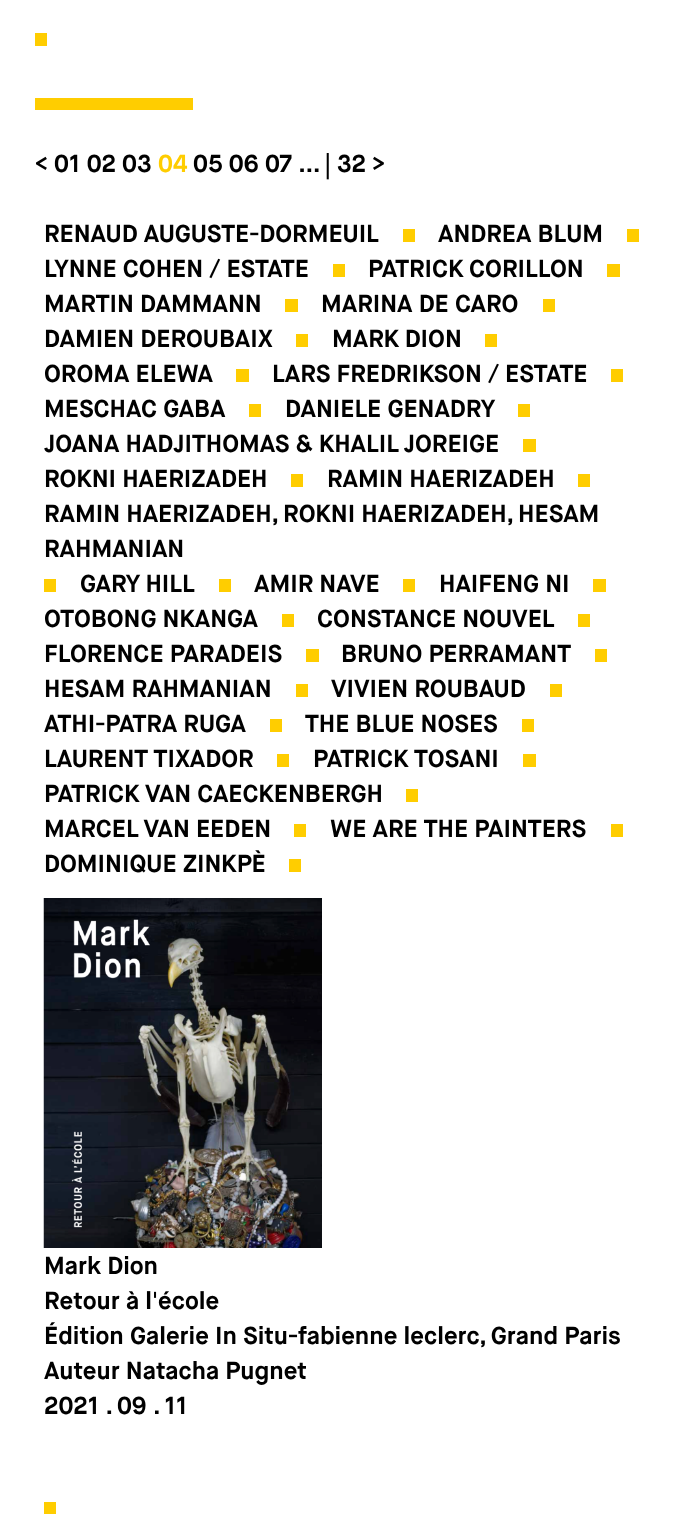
<svg xmlns="http://www.w3.org/2000/svg" width="698" height="1519" viewBox="0 0 698 1519">
  <rect width="100%" height="100%" fill="#fff"/>
  <path d="M35 33h12v13H35z" fill="#ffcd00"/>
  <path d="M35 98h158v12H35z" fill="#ffcd00"/>
  <path d="M403 229h12v13H403z" fill="#ffcd00"/>
  <path d="M627 229h12v13H627z" fill="#ffcd00"/>
  <path d="M333 264h12v13H333z" fill="#ffcd00"/>
  <path d="M607 264h13v13H607z" fill="#ffcd00"/>
  <path d="M285 299h13v13H285z" fill="#ffcd00"/>
  <path d="M543 299h12v13H543z" fill="#ffcd00"/>
  <path d="M296 334h12v13H296z" fill="#ffcd00"/>
  <path d="M485 334h12v13H485z" fill="#ffcd00"/>
  <path d="M236 369h13v13H236z" fill="#ffcd00"/>
  <path d="M611 369h12v13H611z" fill="#ffcd00"/>
  <path d="M249 404h12v13H249z" fill="#ffcd00"/>
  <path d="M518 404h12v13H518z" fill="#ffcd00"/>
  <path d="M523 439h13v13H523z" fill="#ffcd00"/>
  <path d="M291 474h12v13H291z" fill="#ffcd00"/>
  <path d="M578 474h12v13H578z" fill="#ffcd00"/>
  <path d="M44 579h12v13H44z" fill="#ffcd00"/>
  <path d="M219 579h12v13H219z" fill="#ffcd00"/>
  <path d="M403 579h12v13H403z" fill="#ffcd00"/>
  <path d="M593 579h13v13H593z" fill="#ffcd00"/>
  <path d="M282 614h12v13H282z" fill="#ffcd00"/>
  <path d="M578 614h12v13H578z" fill="#ffcd00"/>
  <path d="M306 649h13v13H306z" fill="#ffcd00"/>
  <path d="M595 649h12v13H595z" fill="#ffcd00"/>
  <path d="M296 684h12v13H296z" fill="#ffcd00"/>
  <path d="M550 684h12v13H550z" fill="#ffcd00"/>
  <path d="M270 719h12v13H270z" fill="#ffcd00"/>
  <path d="M522 719h12v13H522z" fill="#ffcd00"/>
  <path d="M277 754h12v13H277z" fill="#ffcd00"/>
  <path d="M523 754h13v13H523z" fill="#ffcd00"/>
  <path d="M406 789h12v13H406z" fill="#ffcd00"/>
  <path d="M294 824h12v13H294z" fill="#ffcd00"/>
  <path d="M611 824h12v13H611z" fill="#ffcd00"/>
  <path d="M289 859h12v13H289z" fill="#ffcd00"/>
  <image x="43" y="898" width="279" height="350" href="img/1.png"/>
  <path d="M44 1502h12v12H44z" fill="#ffcd00"/>
  <text x="35" y="172" font-family="Maison Neue" font-size="24.5" font-weight="bold" fill="#000">&lt; 01 02 03</text>
  <text x="158" y="172" font-family="Maison Neue" font-size="24.5" font-weight="bold" fill="#ffcd00">04</text>
  <g font-family="Maison Neue" font-size="24.5" font-weight="bold" fill="#000">
    <text x="193" y="172">05 06 07 … | 32 &gt;</text>
    <text x="44" y="242">RENAUD AUGUSTE-DORMEUIL</text>
    <text x="438" y="242">ANDREA BLUM</text>
    <text x="44" y="277">LYNNE COHEN / ESTATE</text>
    <text x="368" y="277">PATRICK CORILLON</text>
    <text x="44" y="312">MARTIN DAMMANN</text>
    <text x="321" y="312">MARINA DE CARO</text>
    <text x="44" y="347">DAMIEN DEROUBAIX</text>
    <text x="332" y="347">MARK DION</text>
    <text x="44" y="382">OROMA ELEWA</text>
    <text x="272" y="382">LARS FREDRIKSON / ESTATE</text>
    <text x="44" y="417">MESCHAC GABA</text>
    <text x="285" y="417">DANIELE GENADRY</text>
    <text x="44" y="452">JOANA HADJITHOMAS &amp; KHALIL JOREIGE</text>
    <text x="44" y="487">ROKNI HAERIZADEH</text>
    <text x="327" y="487">RAMIN HAERIZADEH</text>
    <text x="44" y="522">RAMIN HAERIZADEH, ROKNI HAERIZADEH, HESAM</text>
    <text x="44" y="557">RAHMANIAN</text>
    <text x="80" y="592">GARY HILL</text>
    <text x="254" y="592">AMIR NAVE</text>
    <text x="439" y="592">HAIFENG NI</text>
    <text x="44" y="627">OTOBONG NKANGA</text>
    <text x="317" y="627">CONSTANCE NOUVEL</text>
    <text x="44" y="662">FLORENCE PARADEIS</text>
    <text x="341" y="662">BRUNO PERRAMANT</text>
    <text x="44" y="697">HESAM RAHMANIAN</text>
    <text x="331" y="697">VIVIEN ROUBAUD</text>
    <text x="44" y="732">ATHI-PATRA RUGA</text>
    <text x="305" y="732">THE BLUE NOSES</text>
    <text x="44" y="767">LAURENT TIXADOR</text>
    <text x="313" y="767">PATRICK TOSANI</text>
    <text x="44" y="802">PATRICK VAN CAECKENBERGH</text>
    <text x="44" y="837">MARCEL VAN EEDEN</text>
    <text x="330" y="837">WE ARE THE PAINTERS</text>
    <text x="44" y="872">DOMINIQUE ZINKPÈ</text>
    <text x="44" y="1274">Mark Dion</text>
    <text x="44" y="1309">Retour à l'école</text>
    <text x="44" y="1344">Édition Galerie In Situ-fabienne leclerc, Grand Paris</text>
    <text x="44" y="1379">Auteur Natacha Pugnet</text>
    <text x="44" y="1414">2021 . 09 . 11</text>
  </g>
</svg>
